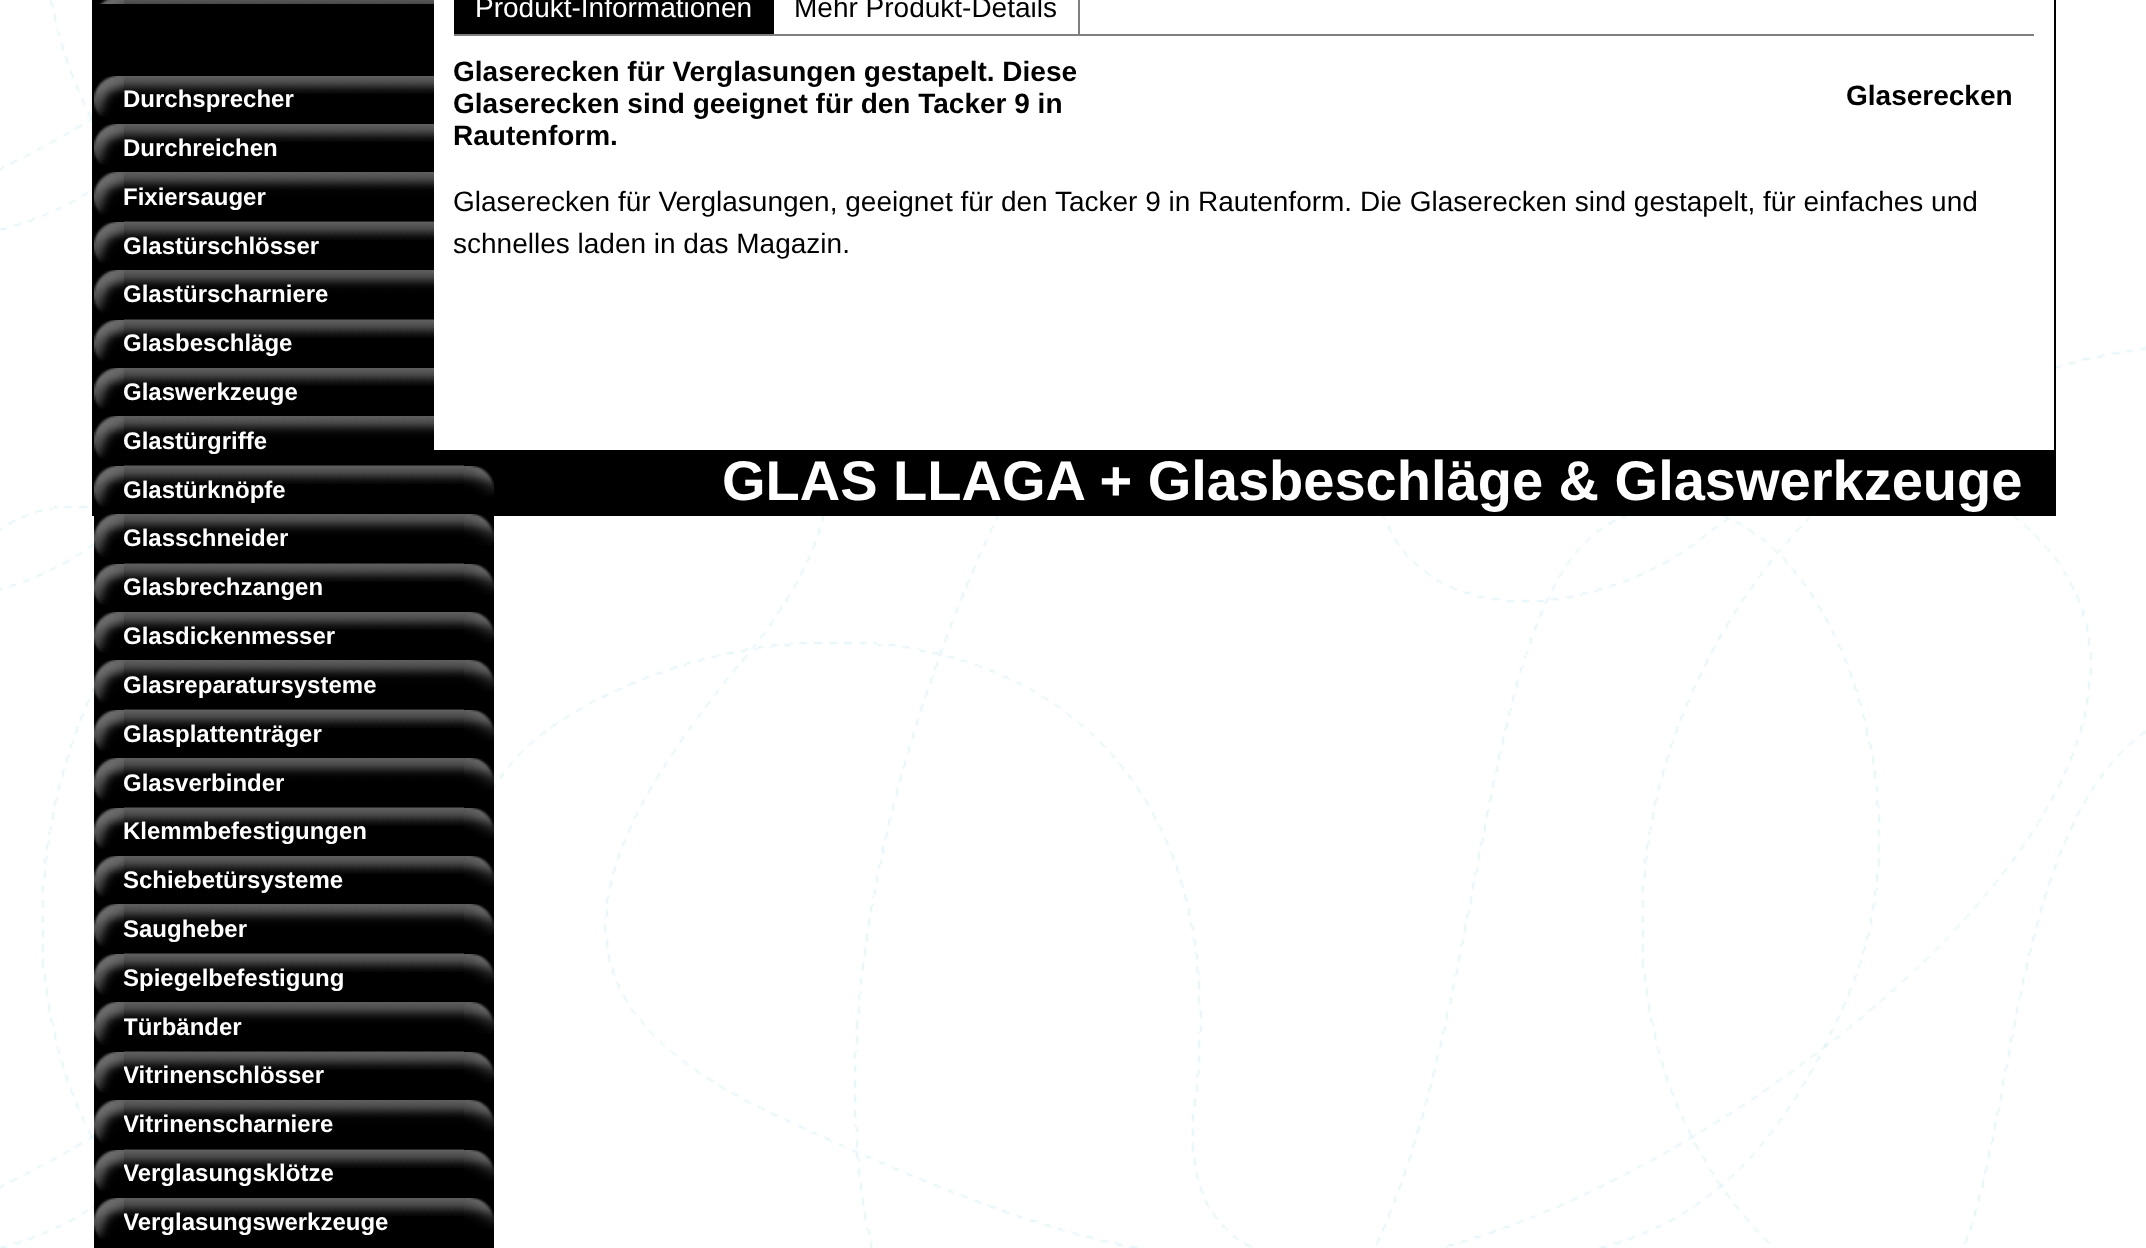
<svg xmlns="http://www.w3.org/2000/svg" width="2146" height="1248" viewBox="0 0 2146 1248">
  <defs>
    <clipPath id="clip1"><path d="M124 1012h324v30H124z"/></clipPath>
    <clipPath id="clip2"><path d="M124 1062h324v28H124z"/></clipPath>
    <clipPath id="clip3"><path d="M124 1110h324v30H124z"/></clipPath>
    <clipPath id="clip4"><path d="M124 1160h324v28H124z"/></clipPath>
    <clipPath id="clip5"><path d="M124 1208h324v28H124z"/></clipPath>
  </defs>
  <rect width="100%" height="100%" fill="#fff"/>
  <image x="0" y="0" width="2146" height="1248" href="img/1.png"/>
  <path d="M93 -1h1962v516H93z" fill="none" stroke="#000" stroke-width="2"/>
  <path d="M94 0h400v1248H94z" fill="#000"/>
  <image x="99" y="0" width="25" height="4" href="img/2.png"/>
  <image x="124" y="0" width="310" height="4" href="img/3.png"/>
  <image x="94" y="76" width="30" height="41" href="img/4.png"/>
  <image x="124" y="76" width="310" height="18" href="img/5.png"/>
  <image x="94" y="124" width="30" height="41" href="img/4.png"/>
  <image x="124" y="124" width="310" height="18" href="img/5.png"/>
  <image x="94" y="172" width="30" height="43" href="img/6.png"/>
  <image x="124" y="172" width="310" height="50" href="img/7.png"/>
  <image x="94" y="222" width="30" height="41" href="img/4.png"/>
  <image x="124" y="222" width="310" height="18" href="img/5.png"/>
  <image x="94" y="270" width="30" height="43" href="img/6.png"/>
  <image x="124" y="270" width="310" height="50" href="img/7.png"/>
  <image x="94" y="320" width="30" height="41" href="img/4.png"/>
  <image x="124" y="320" width="310" height="18" href="img/5.png"/>
  <image x="94" y="368" width="30" height="41" href="img/4.png"/>
  <image x="124" y="368" width="310" height="18" href="img/5.png"/>
  <image x="94" y="416" width="30" height="43" href="img/6.png"/>
  <image x="124" y="416" width="340" height="50" href="img/8.png"/>
  <image x="94" y="466" width="30" height="41" href="img/4.png"/>
  <image x="124" y="466" width="340" height="18" href="img/9.png"/>
  <image x="464" y="466" width="30" height="31" href="img/10.png"/>
  <image x="94" y="514" width="30" height="43" href="img/6.png"/>
  <image x="124" y="514" width="340" height="50" href="img/8.png"/>
  <image x="464" y="514" width="30" height="32" href="img/11.png"/>
  <image x="94" y="564" width="30" height="41" href="img/4.png"/>
  <image x="124" y="564" width="340" height="18" href="img/9.png"/>
  <image x="464" y="564" width="30" height="31" href="img/10.png"/>
  <image x="94" y="612" width="30" height="41" href="img/4.png"/>
  <image x="124" y="612" width="340" height="18" href="img/9.png"/>
  <image x="464" y="612" width="30" height="31" href="img/10.png"/>
  <image x="94" y="660" width="30" height="43" href="img/6.png"/>
  <image x="124" y="660" width="340" height="50" href="img/8.png"/>
  <image x="464" y="660" width="30" height="32" href="img/11.png"/>
  <image x="94" y="710" width="30" height="41" href="img/4.png"/>
  <image x="124" y="710" width="340" height="18" href="img/9.png"/>
  <image x="464" y="710" width="30" height="31" href="img/10.png"/>
  <image x="94" y="758" width="30" height="43" href="img/6.png"/>
  <image x="124" y="758" width="340" height="50" href="img/8.png"/>
  <image x="464" y="758" width="30" height="32" href="img/11.png"/>
  <image x="94" y="808" width="30" height="41" href="img/4.png"/>
  <image x="124" y="808" width="340" height="18" href="img/9.png"/>
  <image x="464" y="808" width="30" height="31" href="img/10.png"/>
  <image x="94" y="856" width="30" height="41" href="img/4.png"/>
  <image x="124" y="856" width="340" height="18" href="img/9.png"/>
  <image x="464" y="856" width="30" height="31" href="img/10.png"/>
  <image x="94" y="904" width="30" height="43" href="img/6.png"/>
  <image x="124" y="904" width="340" height="50" href="img/8.png"/>
  <image x="464" y="904" width="30" height="32" href="img/11.png"/>
  <image x="94" y="954" width="30" height="41" href="img/4.png"/>
  <image x="124" y="954" width="340" height="18" href="img/9.png"/>
  <image x="464" y="954" width="30" height="31" href="img/10.png"/>
  <image x="94" y="1002" width="30" height="43" href="img/6.png"/>
  <image x="124" y="1002" width="340" height="50" href="img/8.png"/>
  <image x="464" y="1002" width="30" height="32" href="img/11.png"/>
  <image x="94" y="1052" width="30" height="41" href="img/4.png"/>
  <image x="124" y="1052" width="340" height="18" href="img/9.png"/>
  <image x="464" y="1052" width="30" height="31" href="img/10.png"/>
  <image x="94" y="1100" width="30" height="43" href="img/6.png"/>
  <image x="124" y="1100" width="340" height="50" href="img/8.png"/>
  <image x="464" y="1100" width="30" height="32" href="img/11.png"/>
  <image x="94" y="1150" width="30" height="41" href="img/4.png"/>
  <image x="124" y="1150" width="340" height="18" href="img/9.png"/>
  <image x="464" y="1150" width="30" height="31" href="img/10.png"/>
  <image x="94" y="1198" width="30" height="41" href="img/4.png"/>
  <image x="124" y="1198" width="340" height="18" href="img/9.png"/>
  <image x="464" y="1198" width="30" height="31" href="img/10.png"/>
  <path d="M434 0h1620v450H434z" fill="#fff"/>
  <path d="M454 34h1580v2H454z" fill="#7f7f7f"/>
  <path d="M456 0h316v34H456z" fill="#000"/>
  <path d="M464-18H764C770-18 774-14 774-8V34H454V-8C454-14 458-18 464-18ZM464-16H764C768-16 772-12 772-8V34H456V-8C456-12 460-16 464-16Z" fill="#000" fill-rule="evenodd"/>
  <path d="M784-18H1070C1076-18 1080-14 1080-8V34H774V-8C774-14 778-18 784-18ZM784-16H1070C1074-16 1078-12 1078-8V34H774V-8C774-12 778-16 784-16Z" fill="#7f7f7f" fill-rule="evenodd"/>
  <path d="M494 450h1560v64H494z" fill="#000"/>
  <g font-family="Liberation Sans" font-size="24" font-weight="bold" fill="#fff">
    <text x="123" y="107">Durchsprecher</text>
    <text x="123" y="156">Durchreichen</text>
    <text x="123" y="205">Fixiersauger</text>
    <text x="123" y="254">Glastürschlösser</text>
    <text x="123" y="302">Glastürscharniere</text>
    <text x="123" y="351">Glasbeschläge</text>
    <text x="123" y="400">Glaswerkzeuge</text>
    <text x="123" y="449">Glastürgriffe</text>
    <text x="123" y="498">Glastürknöpfe</text>
    <text x="123" y="546">Glasschneider</text>
    <text x="123" y="595">Glasbrechzangen</text>
    <text x="123" y="644">Glasdickenmesser</text>
    <text x="123" y="693">Glasreparatursysteme</text>
    <text x="123" y="742">Glasplattenträger</text>
    <text x="123" y="791">Glasverbinder</text>
    <text x="123" y="839">Klemmbefestigungen</text>
    <text x="123" y="888">Schiebetürsysteme</text>
    <text x="123" y="937">Saugheber</text>
    <text x="123" y="986">Spiegelbefestigung</text>
  </g>
  <g clip-path="url(#clip1)">
    <text x="123" y="1035" font-family="Liberation Sans" font-size="24" font-weight="bold" fill="#fff">Türbänder</text>
  </g>
  <g clip-path="url(#clip2)">
    <text x="123" y="1083" font-family="Liberation Sans" font-size="24" font-weight="bold" fill="#fff">Vitrinenschlösser</text>
  </g>
  <g clip-path="url(#clip3)">
    <text x="123" y="1132" font-family="Liberation Sans" font-size="24" font-weight="bold" fill="#fff">Vitrinenscharniere</text>
  </g>
  <g clip-path="url(#clip4)">
    <text x="123" y="1181" font-family="Liberation Sans" font-size="24" font-weight="bold" fill="#fff">Verglasungsklötze</text>
  </g>
  <g clip-path="url(#clip5)">
    <text x="123" y="1230" font-family="Liberation Sans" font-size="24" font-weight="bold" fill="#fff">Verglasungswerkzeuge</text>
  </g>
  <text x="475" y="17" font-family="Liberation Sans" font-size="28" fill="#fff">Produkt-Informationen</text>
  <text x="794" y="17" font-family="Liberation Sans" font-size="28" fill="#000">Mehr Produkt-Details</text>
  <g font-family="Liberation Sans" font-size="28" font-weight="bold" fill="#000">
    <text x="453" y="81">Glaserecken für Verglasungen gestapelt. Diese</text>
    <text x="453" y="113">Glaserecken sind geeignet für den Tacker 9 in</text>
    <text x="453" y="145">Rautenform.</text>
  </g>
  <g font-family="Liberation Sans" font-size="28" fill="#000">
    <text x="453" y="211">Glaserecken für Verglasungen, geeignet für den Tacker 9 in Rautenform. Die Glaserecken sind gestapelt, für einfaches und</text>
    <text x="453" y="253">schnelles laden in das Magazin.</text>
  </g>
  <text x="1846" y="105" font-family="Liberation Sans" font-size="28" font-weight="bold" fill="#000">Glaserecken</text>
  <text x="722" y="500" font-family="Liberation Sans" font-size="56" font-weight="bold" fill="#fff">GLAS LLAGA + Glasbeschläge &amp; Glaswerkzeuge</text>
</svg>
